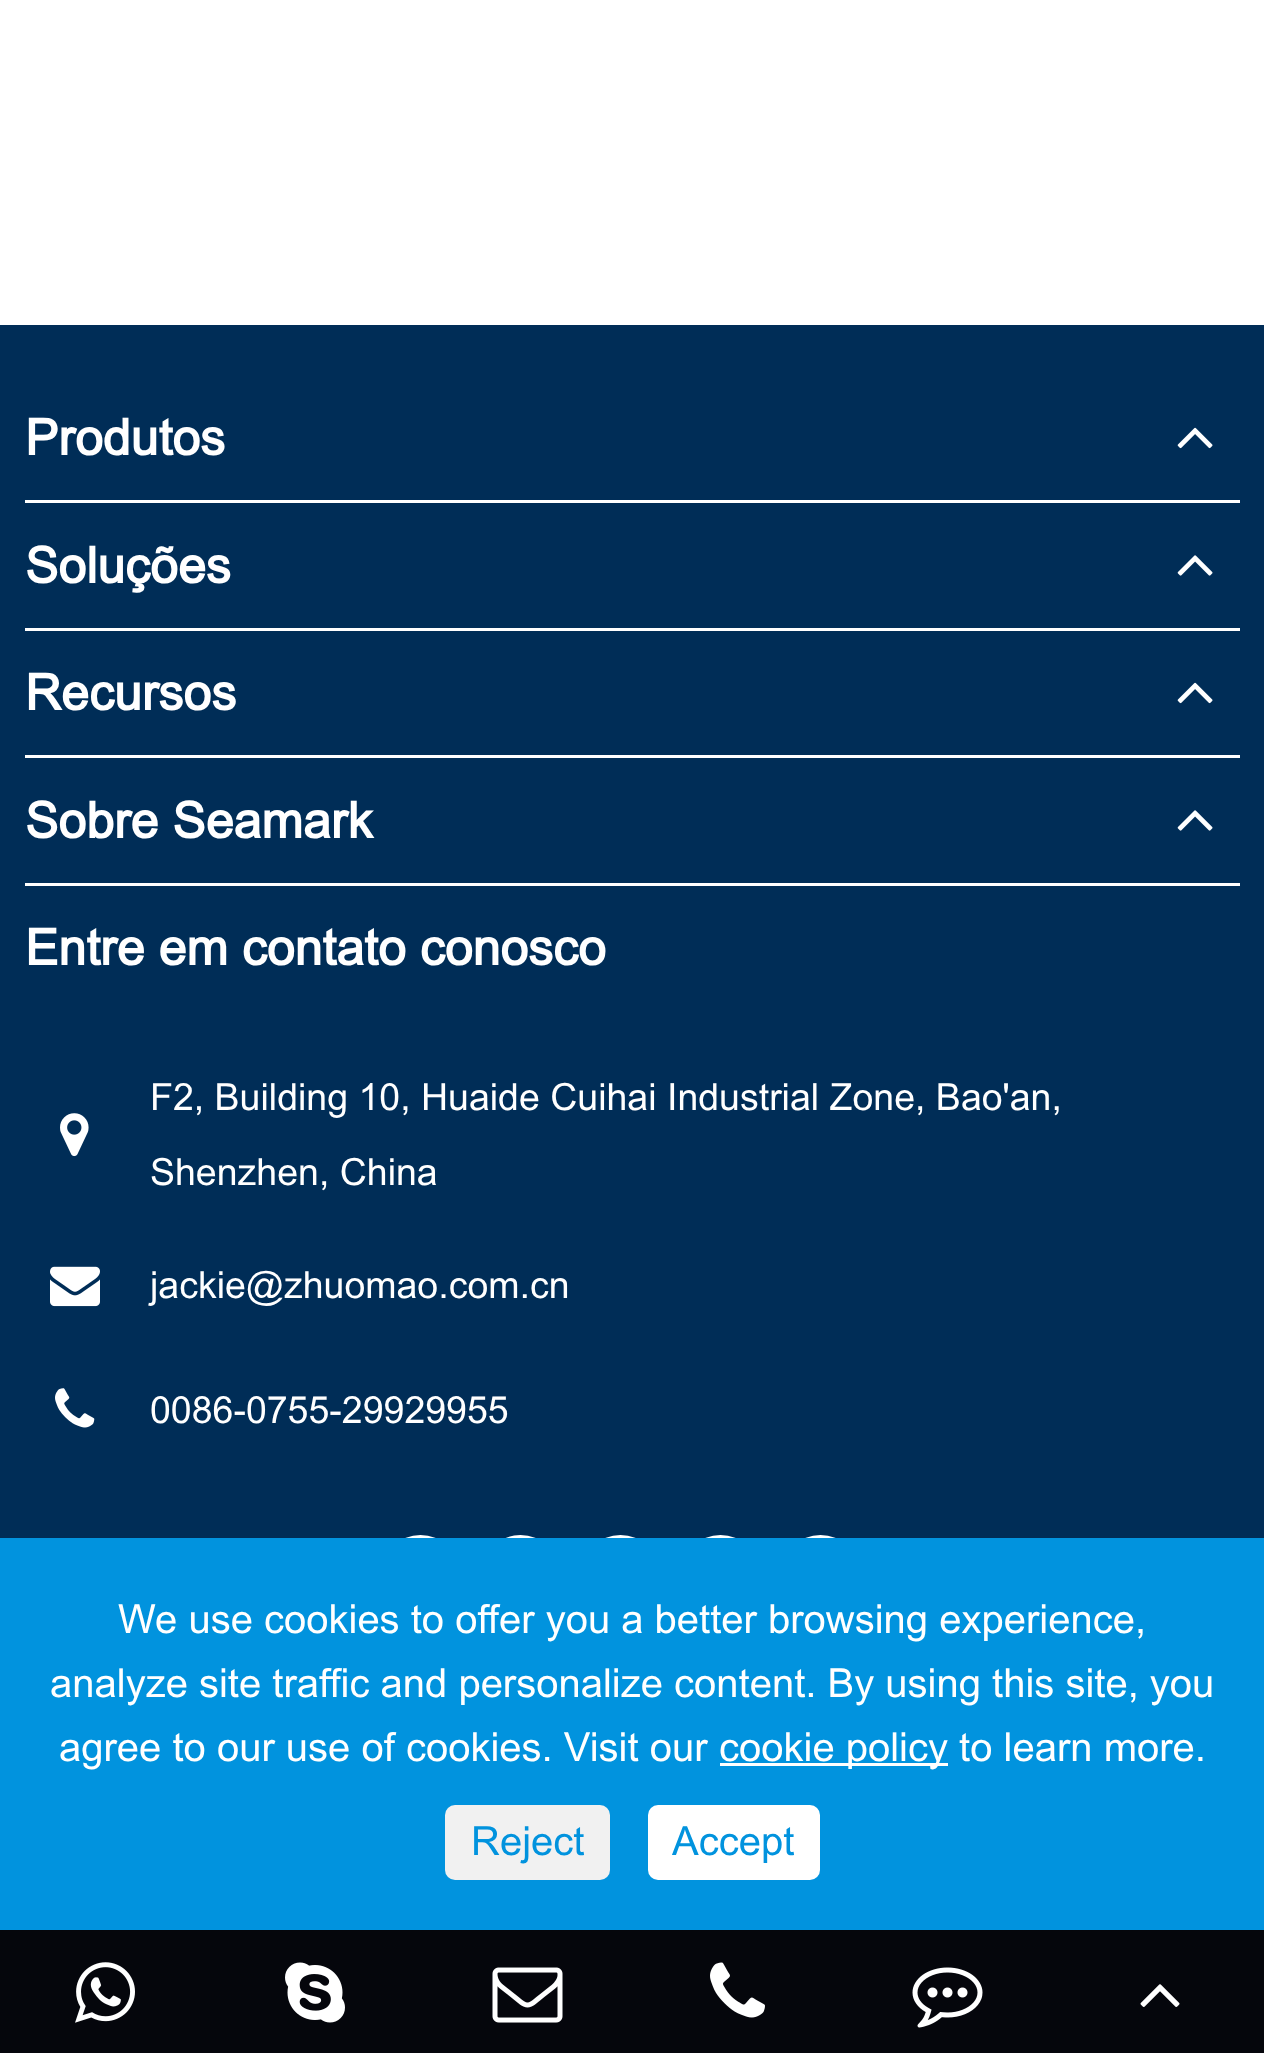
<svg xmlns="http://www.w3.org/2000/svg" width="1264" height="2053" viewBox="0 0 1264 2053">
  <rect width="100%" height="100%" fill="#fff"/>
  <path d="M0 325h1264v1213H0z" fill="#002d57"/>
  <path d="M25 500h1215v3H25z" fill="#fff"/>
  <image x="1177" y="427" width="36" height="22" href="img/1.png"/>
  <path d="M25 628h1215v3H25z" fill="#fff"/>
  <image x="1177" y="555" width="36" height="21" href="img/2.png"/>
  <path d="M25 755h1215v3H25z" fill="#fff"/>
  <image x="1177" y="682" width="36" height="22" href="img/1.png"/>
  <path d="M25 883h1215v3H25z" fill="#fff"/>
  <image x="1177" y="810" width="36" height="21" href="img/2.png"/>
  <image x="60" y="1113" width="29" height="44" href="img/3.png"/>
  <image x="50" y="1266" width="50" height="41" href="img/4.png"/>
  <image x="55" y="1388" width="40" height="40" href="img/5.png"/>
  <rect x="384.5" y="1536.5" width="72" height="77" rx="36" fill="none" stroke="#fff" stroke-width="3"/>
  <rect x="484.5" y="1536.5" width="72" height="77" rx="36" fill="none" stroke="#fff" stroke-width="3"/>
  <rect x="584.5" y="1536.5" width="72" height="77" rx="36" fill="none" stroke="#fff" stroke-width="3"/>
  <rect x="684.5" y="1536.5" width="72" height="77" rx="36" fill="none" stroke="#fff" stroke-width="3"/>
  <rect x="784.5" y="1536.5" width="72" height="77" rx="36" fill="none" stroke="#fff" stroke-width="3"/>
  <path d="M0 1538h1264v392H0z" fill="#0193de"/>
  <path d="M720 1763h228v3H720z" fill="#fff"/>
  <rect x="445" y="1805" width="165" height="75" rx="10" fill="#f1f1f1"/>
  <rect x="648" y="1805" width="172" height="75" rx="10" fill="#fff"/>
  <path d="M0 1930h1264v123H0z" fill="#05060c"/>
  <image x="75" y="1962" width="60" height="61" href="img/6.png"/>
  <image x="285" y="1962" width="60" height="61" href="img/7.png"/>
  <image x="492" y="1967" width="71" height="56" href="img/8.png"/>
  <image x="710" y="1962" width="55" height="56" href="img/9.png"/>
  <image x="912" y="1967" width="71" height="61" href="img/10.png"/>
  <image x="1140" y="1984" width="40" height="23" href="img/11.png"/>
  <g font-family="Arial" font-size="50" font-weight="bold" fill="#fff">
    <text x="25" y="455">Produtos</text>
    <text x="25" y="583">Soluções</text>
    <text x="25" y="710">Recursos</text>
    <text x="25" y="838">Sobre Seamark</text>
    <text x="25" y="965">Entre em contato conosco</text>
  </g>
  <g font-family="Arial" font-size="37.5" fill="#fff">
    <text x="150" y="1110">F2, Building 10, Huaide Cuihai Industrial Zone, Bao'an,</text>
    <text x="150" y="1185">Shenzhen, China</text>
    <text x="150" y="1298">jackie@zhuomao.com.cn</text>
    <text x="150" y="1423">0086-0755-29929955</text>
  </g>
  <g font-family="Arial" font-size="40" fill="#fff">
    <text x="118" y="1633">We use cookies to offer you a better browsing experience,</text>
    <text x="50" y="1697">analyze site traffic and personalize content. By using this site, you</text>
    <text x="59" y="1761">agree to our use of cookies. Visit our</text>
    <text x="719" y="1761">cookie policy to learn more.</text>
  </g>
  <g font-family="Arial" font-size="40" fill="#0193de">
    <text x="471" y="1855">Reject</text>
    <text x="672" y="1855">Accept</text>
  </g>
</svg>
